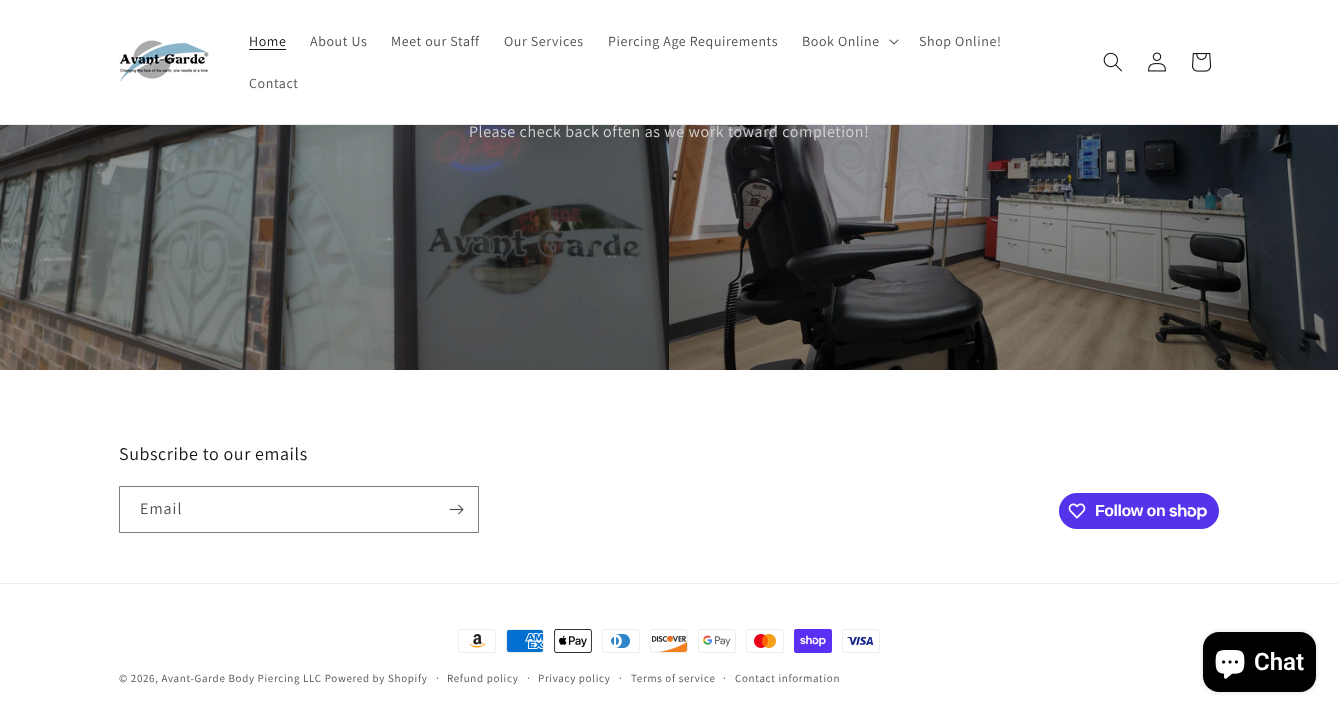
<svg xmlns="http://www.w3.org/2000/svg" width="1338" height="713" viewBox="0 0 1338 713">
  <rect width="100%" height="100%" fill="#fff"/>
  <path d="M0 124h1338v1H0z" fill="#ececec"/>
  <image x="119" y="40" width="90" height="43" href="img/1.png"/>
  <path d="M249 49h37v1H249z" fill="#121212"/>
  <image x="889" y="39" width="10" height="6" href="img/2.png"/>
  <image x="1103" y="52" width="19" height="20" href="img/3.png"/>
  <image x="1148" y="52" width="18" height="20" href="img/4.png"/>
  <image x="1192" y="53" width="20" height="19" href="img/5.png"/>
  <image x="0" y="125" width="669" height="245" href="img/6.png"/>
  <image x="669" y="125" width="669" height="245" href="img/7.png"/>
  <path d="M119.5 486.5h359v46H119.5z" fill="none" stroke="#7d7d7d"/>
  <image x="449" y="504" width="15" height="11" href="img/8.png"/>
  <rect x="1059" y="493" width="160" height="36" rx="18" fill="#5433eb"/>
  <image x="1068" y="503" width="18" height="16" href="img/9.png"/>
  <image x="1169" y="504" width="38" height="16" href="img/10.png"/>
  <path d="M0 583h1338v1H0z" fill="#ececec"/>
  <image x="458" y="629" width="38" height="24" href="img/11.png"/>
  <image x="506" y="629" width="38" height="24" href="img/12.png"/>
  <image x="554" y="629" width="38" height="24" href="img/13.png"/>
  <image x="602" y="629" width="38" height="24" href="img/14.png"/>
  <image x="650" y="629" width="38" height="24" href="img/15.png"/>
  <image x="698" y="629" width="38" height="24" href="img/16.png"/>
  <image x="746" y="629" width="38" height="24" href="img/17.png"/>
  <image x="794" y="629" width="38" height="24" href="img/18.png"/>
  <image x="842" y="629" width="38" height="24" href="img/19.png"/>
  <rect x="1203" y="632" width="113" height="60" rx="16" fill="#00000026" filter="blur(2.5px)"/>
  <rect x="1203" y="632" width="113" height="60" rx="16" fill="#000"/>
  <image x="1215" y="650" width="30" height="29" href="img/20.png"/>
  <text x="249" y="46" font-family="Assistant" font-size="14" letter-spacing="0.6" fill="#121212">Home</text>
  <g font-family="Assistant" font-size="14" letter-spacing="0.6" fill="#4d4d4d">
    <text x="310" y="46">About Us</text>
    <text x="391" y="46">Meet our Staff</text>
    <text x="504" y="46">Our Services</text>
    <text x="608" y="46">Piercing Age Requirements</text>
    <text x="802" y="46">Book Online</text>
    <text x="919" y="46">Shop Online!</text>
    <text x="249" y="88">Contact</text>
  </g>
  <text x="469" y="137" font-family="Assistant" font-size="16" letter-spacing="0.6" fill="#d5d5d6">Please check back often as we work toward completion!</text>
  <text x="119" y="460" font-family="Assistant" font-size="18" letter-spacing="0.6" fill="#121212">Subscribe to our emails</text>
  <text x="140" y="514" font-family="Assistant" font-size="16" letter-spacing="1" fill="#4d4d4d">Email</text>
  <text x="1095" y="516" font-family="Liberation Sans" font-size="16" font-weight="bold" letter-spacing="-0.5" fill="#fff">Follow on</text>
  <text x="119" y="682" font-family="Assistant" font-size="11" letter-spacing="0.7" fill="#4d4d4d">© 2026, Avant-Garde Body Piercing LLC Powered by Shopify</text>
  <text x="436" y="682" font-family="Assistant" font-size="12" letter-spacing="0.7" fill="#4d4d4d">·</text>
  <text x="447" y="682" font-family="Assistant" font-size="11" letter-spacing="0.7" fill="#4d4d4d">Refund policy</text>
  <text x="527" y="682" font-family="Assistant" font-size="12" letter-spacing="0.7" fill="#4d4d4d">·</text>
  <text x="538" y="682" font-family="Assistant" font-size="11" letter-spacing="0.7" fill="#4d4d4d">Privacy policy</text>
  <text x="619" y="682" font-family="Assistant" font-size="12" letter-spacing="0.7" fill="#4d4d4d">·</text>
  <text x="631" y="682" font-family="Assistant" font-size="11" letter-spacing="0.7" fill="#4d4d4d">Terms of service</text>
  <text x="723" y="682" font-family="Assistant" font-size="12" letter-spacing="0.7" fill="#4d4d4d">·</text>
  <text x="735" y="682" font-family="Assistant" font-size="11" letter-spacing="0.7" fill="#4d4d4d">Contact information</text>
  <text x="1254" y="670" font-family="Roboto" font-size="24" font-weight="600" fill="#fff">Chat</text>
</svg>
